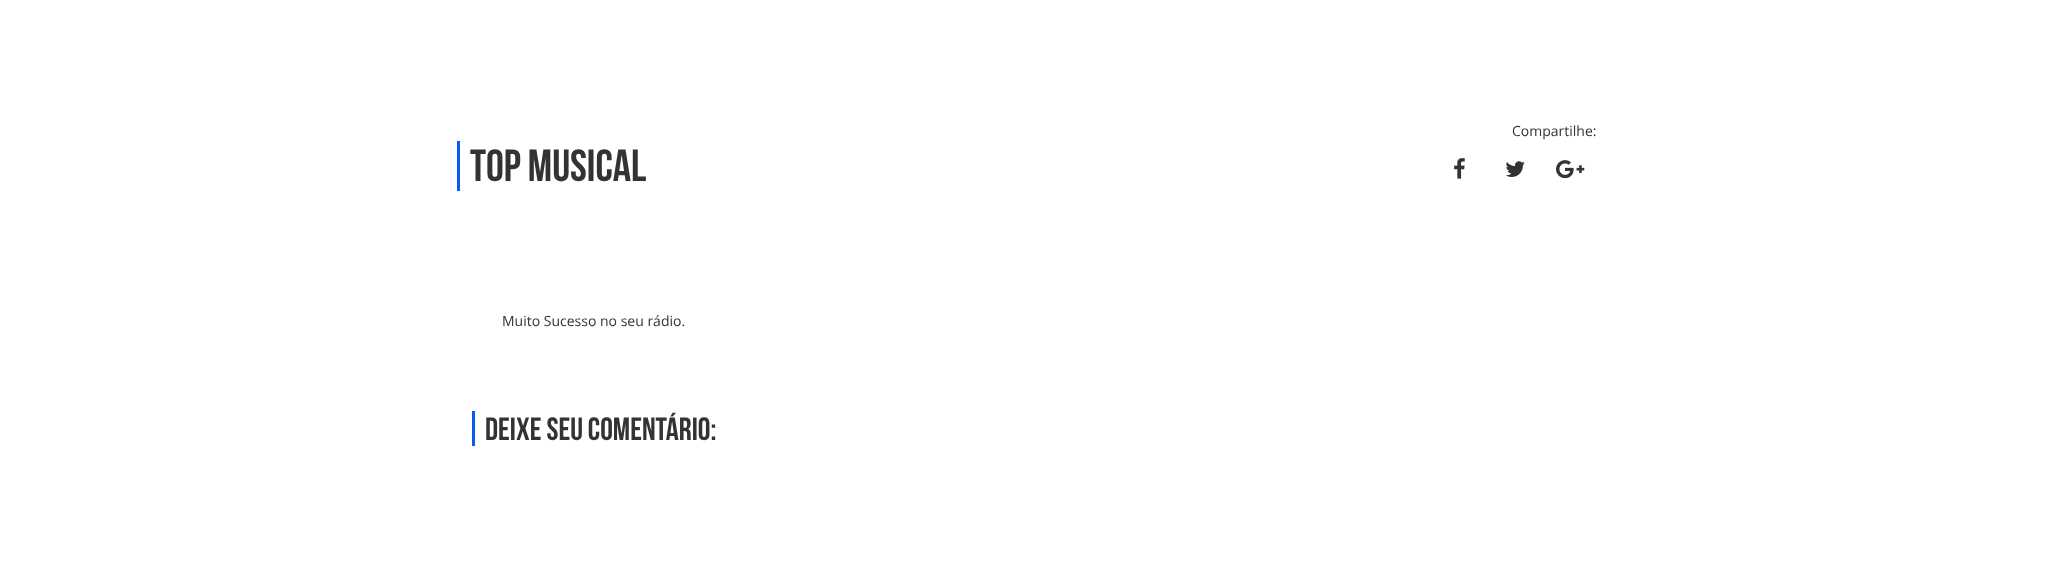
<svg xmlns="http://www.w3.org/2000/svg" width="2053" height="564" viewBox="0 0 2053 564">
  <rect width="100%" height="100%" fill="#fff"/>
  <image x="1454" y="158" width="11" height="21" href="img/1.png"/>
  <image x="1505" y="161" width="20" height="16" href="img/2.png"/>
  <image x="1556" y="160" width="29" height="19" href="img/3.png"/>
  <path d="M457 141h3v50H457z" fill="#095af7"/>
  <path d="M472 411h3v35H472z" fill="#095af7"/>
  <text x="1512" y="136" font-family="Open Sans" font-size="14" fill="#333">Compartilhe:</text>
  <text x="470" y="181" font-family="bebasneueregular" font-size="45" fill="#333">Top Musical</text>
  <text x="502" y="326" font-family="Open Sans" font-size="14" fill="#333">Muito Sucesso no seu rádio.</text>
  <text x="485" y="440" font-family="bebasneueregular" font-size="32" fill="#333">Deixe seu comentário:</text>
</svg>
